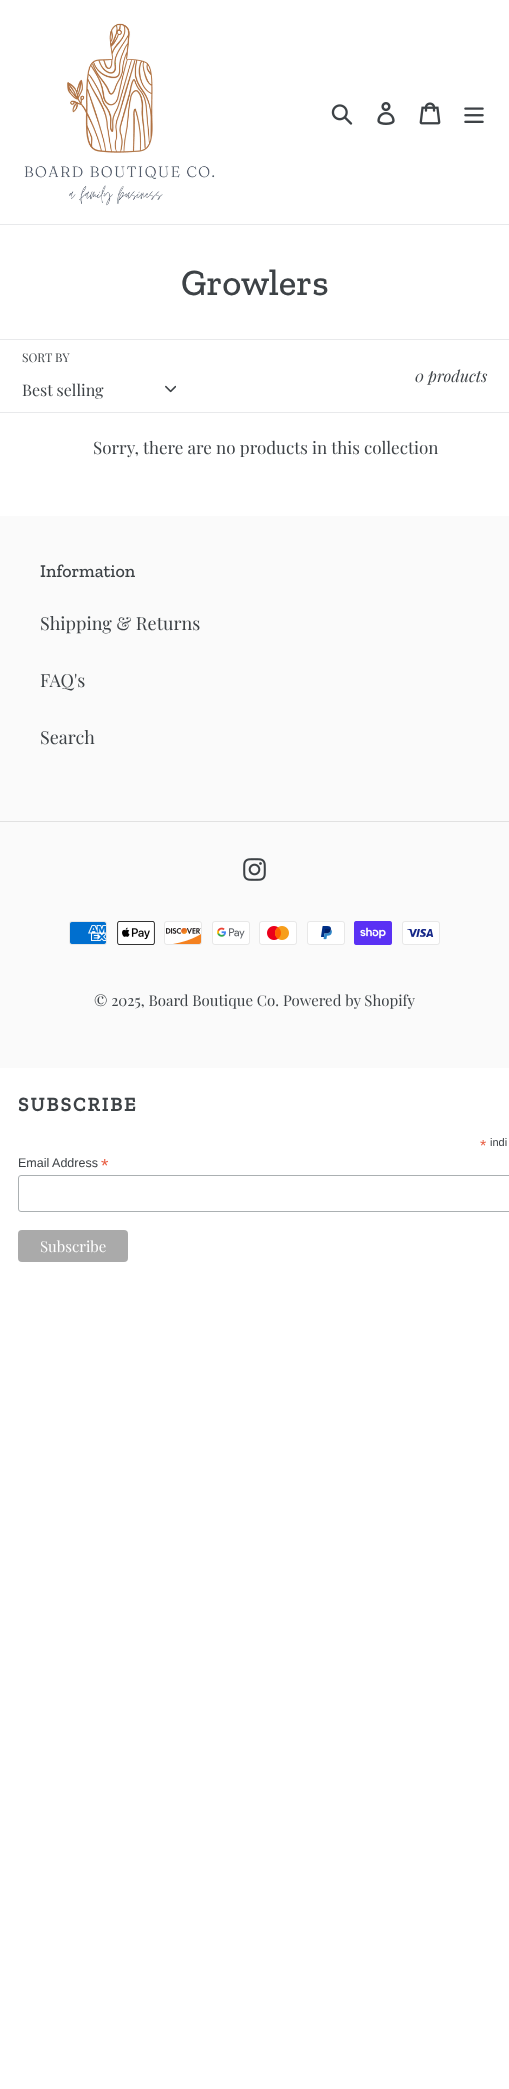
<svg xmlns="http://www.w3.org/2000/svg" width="509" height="2089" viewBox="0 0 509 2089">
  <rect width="100%" height="100%" fill="#fff"/>
  <path d="M0 224h509v1H0z" fill="#e8e9eb"/>
  <image x="24" y="23" width="191" height="183" href="img/1.png"/>
  <image x="331" y="104" width="22" height="21" href="img/2.png"/>
  <image x="377" y="102" width="18" height="23" href="img/3.png"/>
  <image x="419" y="102" width="22" height="23" href="img/4.png"/>
  <image x="464" y="107" width="20" height="16" href="img/5.png"/>
  <path d="M0 339h509v1H0z" fill="#e8e9eb"/>
  <path d="M0 412h509v1H0z" fill="#e8e9eb"/>
  <image x="165" y="385" width="11" height="8" href="img/6.png"/>
  <path d="M0 516h509v552H0z" fill="#fafafa"/>
  <path d="M0 821h509v1H0z" fill="#e1e1e1"/>
  <image x="243" y="858" width="23" height="23" href="img/7.png"/>
  <image x="69" y="921" width="38" height="24" href="img/8.png"/>
  <image x="117" y="921" width="38" height="24" href="img/9.png"/>
  <image x="164" y="921" width="38" height="24" href="img/10.png"/>
  <image x="212" y="921" width="38" height="24" href="img/11.png"/>
  <image x="259" y="921" width="38" height="24" href="img/12.png"/>
  <image x="307" y="921" width="38" height="24" href="img/13.png"/>
  <image x="354" y="921" width="38" height="24" href="img/14.png"/>
  <image x="402" y="921" width="38" height="24" href="img/15.png"/>
  <rect x="18.5" y="1175.5" width="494" height="36" rx="2.5" fill="none" stroke="#abb0b2"/>
  <rect x="18" y="1230" width="110" height="32" rx="4" fill="#aaa"/>
  <text x="181" y="295" font-family="Zilla Slab" font-size="37" font-weight="500" fill="#3d4246">Growlers</text>
  <text x="22" y="362" font-family="Playfair Display" font-size="12" fill="#3d4246">SORT BY</text>
  <text x="22" y="396" font-family="Playfair Display" font-size="16" fill="#3d4246">Best selling</text>
  <text x="415" y="382" font-family="Playfair Display" font-size="16" font-style="italic" fill="#3d4246">0 products</text>
  <text x="93" y="454" font-family="Playfair Display" font-size="17" fill="#3d4246">Sorry, there are no products in this collection</text>
  <text x="40" y="577" font-family="Zilla Slab" font-size="18" font-weight="500" fill="#3d4246">Information</text>
  <g font-family="Playfair Display" font-size="18" fill="#3d4246">
    <text x="40" y="630">Shipping &amp; Returns</text>
    <text x="40" y="687">FAQ's</text>
    <text x="40" y="744">Search</text>
  </g>
  <g font-family="Playfair Display" font-size="15" fill="#3d4246">
    <text x="94" y="1006">© 2025, Board Boutique Co.</text>
    <text x="283" y="1006">Powered by Shopify</text>
  </g>
  <text x="18" y="1111" font-family="Zilla Slab" font-size="19.5" font-weight="bold" letter-spacing="2" fill="#3d4246">SUBSCRIBE</text>
  <text x="480" y="1151" font-family="Liberation Sans" font-size="16" fill="#e85c41">*</text>
  <text x="490" y="1146" font-family="Liberation Sans" font-size="11" fill="#3d4246">indi</text>
  <text x="18" y="1167" font-family="Liberation Sans" font-size="12.5" fill="#3d4246">Email Address</text>
  <text x="101" y="1172" font-family="Liberation Sans" font-size="19" fill="#e85c41">*</text>
  <text x="40" y="1252" font-family="Playfair Display" font-size="15" fill="#fff">Subscribe</text>
</svg>
